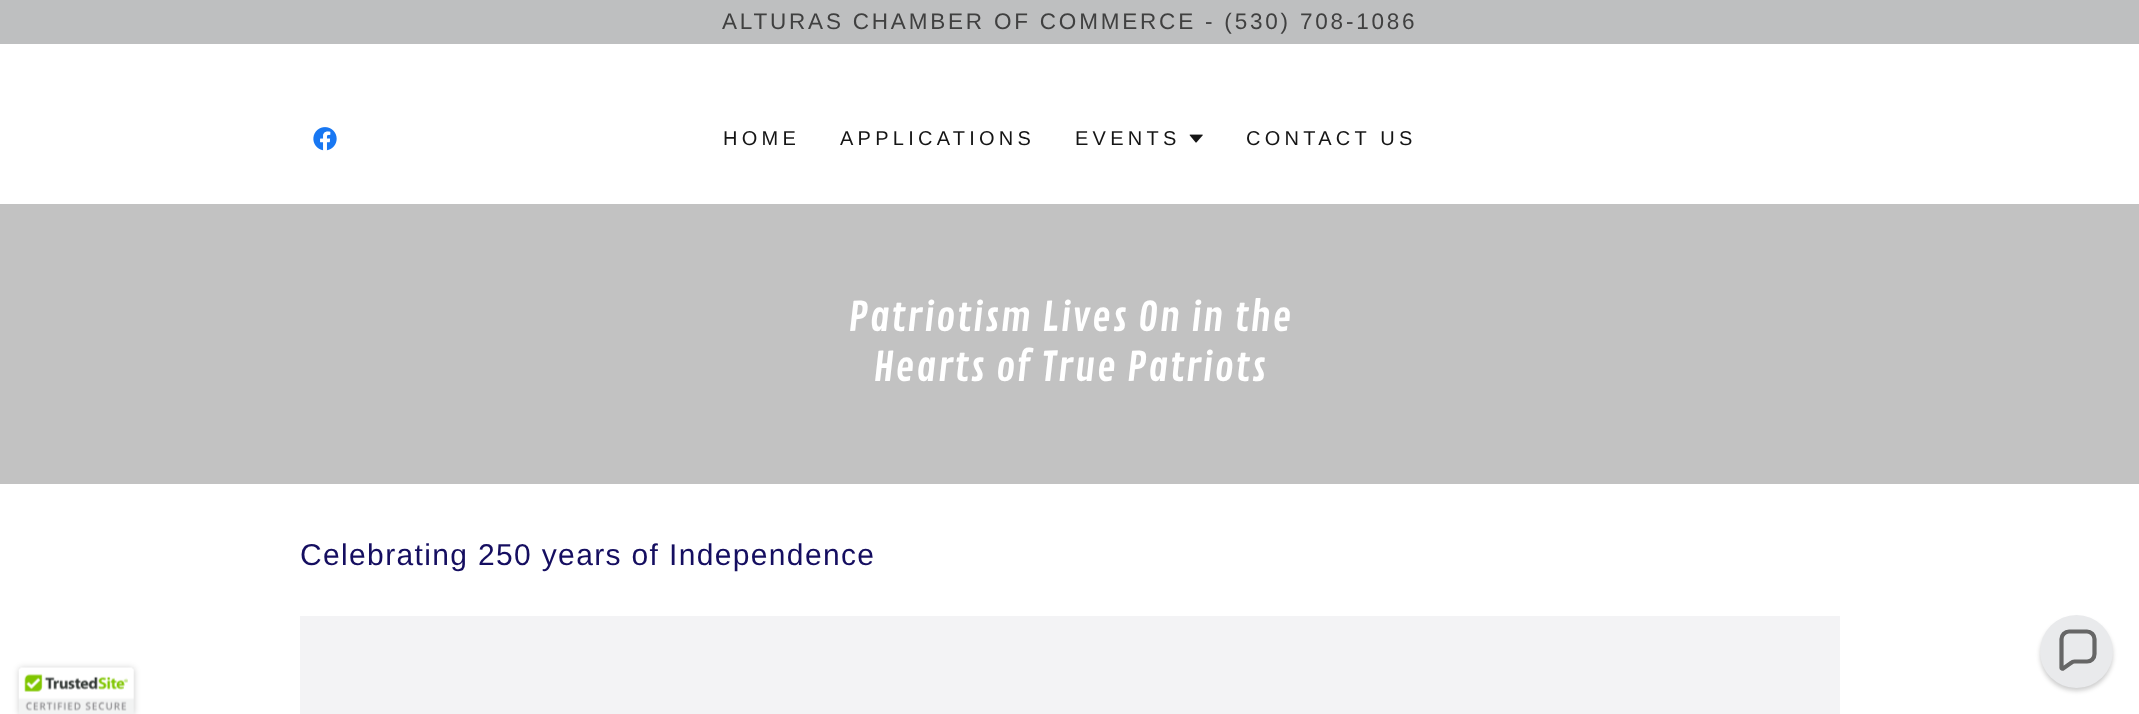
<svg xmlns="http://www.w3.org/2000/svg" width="2139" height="714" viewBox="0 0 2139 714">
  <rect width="100%" height="100%" fill="#fff"/>
  <path d="M0 0h2139v44H0z" fill="#bebfc0"/>
  <image x="313" y="127" width="24" height="24" href="img/1.png"/>
  <image x="1189" y="134" width="14" height="9" href="img/2.png"/>
  <path d="M0 204h2139v280H0z" fill="#c2c2c2"/>
  <path d="M300 616h1540v98H300z" fill="#f3f3f5"/>
  <rect x="19" y="668" width="115" height="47" rx="2.5" fill="#00000033" filter="blur(3px)"/>
  <image x="18" y="667" width="116" height="47" href="img/3.png"/>
  <rect x="2040" y="619" width="73" height="72" rx="36" fill="#0d0d0d33" filter="blur(2px)"/>
  <circle cx="2076.5" cy="651.5" r="36.5" fill="#e9eaec"/>
  <path d="M2087 631.5H2069C2065 631.5 2061.5 635 2061.5 639V668C2061.5 668.5 2062.5 669 2063 668.5L2071 663C2072 662 2073.5 661.5 2074.5 661.5H2087C2091 661.5 2094.5 658.5 2094.5 654V639C2094.5 635 2091 631.5 2087 631.5Z" fill="none" stroke="#666" stroke-width="4.2"/>
  <text x="722" y="29" font-family="Liberation Sans" font-size="22.5" letter-spacing="2.8" fill="#404040">ALTURAS CHAMBER OF COMMERCE - (530) 708-1086</text>
  <g font-family="Liberation Sans" font-size="20" letter-spacing="4.25" fill="#151515">
    <text x="723" y="145">HOME</text>
    <text x="840" y="145">APPLICATIONS</text>
    <text x="1075" y="145">EVENTS</text>
    <text x="1246" y="145">CONTACT US</text>
  </g>
  <g font-family="Contrail One" font-size="40" letter-spacing="1.25" fill="#fff">
    <text x="848" y="331">Patriotism Lives On in the</text>
    <text x="873" y="381">Hearts of True Patriots</text>
  </g>
  <text x="300" y="565" font-family="Liberation Sans" font-size="30" letter-spacing="1.35" fill="#150e60">Celebrating 250 years of Independence</text>
</svg>
